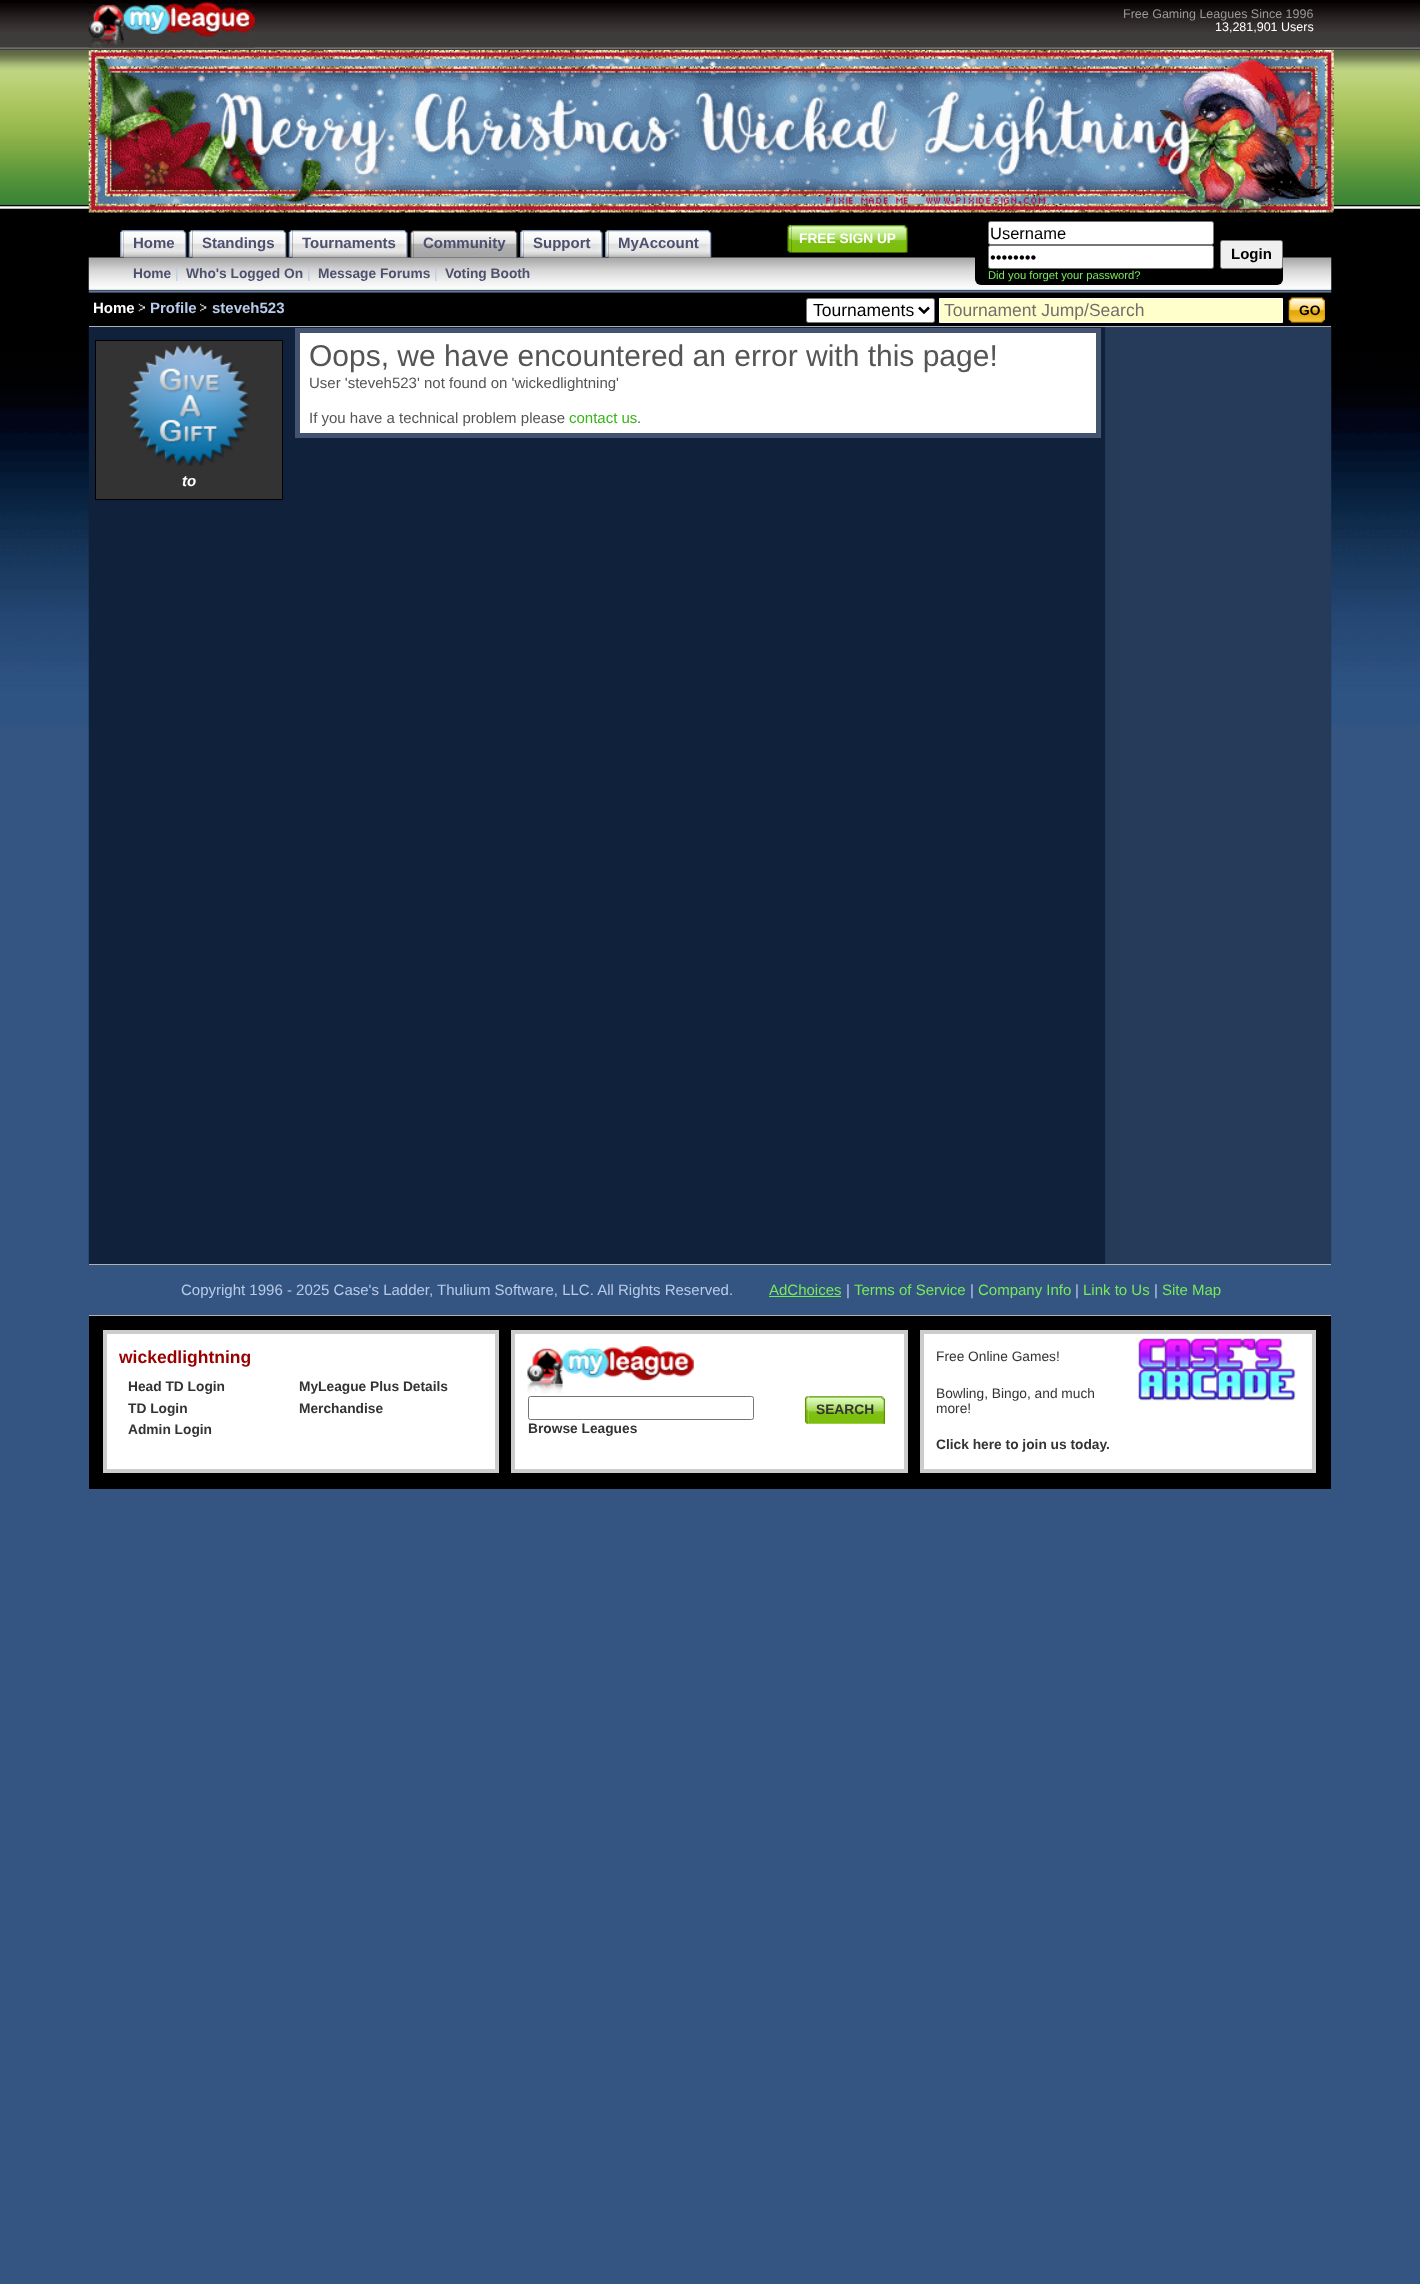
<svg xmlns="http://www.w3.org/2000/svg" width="1420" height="2284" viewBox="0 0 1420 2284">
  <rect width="100%" height="100%" fill="#345582"/>
  <image x="0" y="50" width="1420" height="675" href="img/1.png"/>
  <image x="0" y="0" width="1420" height="50" href="img/2.png"/>
  <image x="88" y="2" width="167" height="46" href="img/3.png"/>
  <image x="88" y="50" width="1246" height="163" href="img/4.png"/>
  <image x="787" y="225" width="5" height="28" href="img/5.png"/>
  <image x="791" y="225" width="117" height="28" href="img/6.png"/>
  <image x="88" y="257" width="1244" height="36" href="img/17.png"/>
  <rect x="975" y="215" width="308" height="70" rx="6" fill="#000"/>
  <rect x="988.5" y="221.5" width="225" height="23" rx="2" fill="#fff" stroke="#767676"/>
  <rect x="988.5" y="245.5" width="225" height="23" rx="2" fill="#fff" stroke="#767676"/>
  <rect x="1220.5" y="240.5" width="62" height="28" rx="2" fill="#efefef" stroke="#767676"/>
  <image x="120" y="230" width="4" height="28" href="img/7.png"/>
  <image x="123" y="230" width="64" height="28" href="img/8.png"/>
  <image x="188" y="230" width="5" height="28" href="img/9.png"/>
  <image x="192" y="230" width="95" height="28" href="img/10.png"/>
  <image x="288" y="230" width="5" height="28" href="img/9.png"/>
  <image x="292" y="230" width="116" height="28" href="img/11.png"/>
  <image x="410" y="230" width="4" height="28" href="img/12.png"/>
  <image x="413" y="230" width="105" height="28" href="img/13.png"/>
  <image x="520" y="230" width="4" height="28" href="img/14.png"/>
  <image x="523" y="230" width="80" height="28" href="img/15.png"/>
  <image x="605" y="230" width="4" height="28" href="img/7.png"/>
  <image x="608" y="230" width="104" height="28" href="img/16.png"/>
  <image x="138" y="303" width="7" height="9" href="img/18.png"/>
  <image x="200" y="303" width="7" height="9" href="img/19.png"/>
  <rect x="806.5" y="298.5" width="128" height="24" rx="2" fill="#fff" stroke="#767676"/>
  <path d="M919 307.5L924 312.5L929 307.5" fill="none" stroke="#000" stroke-width="2.5"/>
  <path d="M939.5 298.5h343v24H939.5z" fill="#ffc" stroke="#fff"/>
  <image x="1288" y="297" width="37" height="26" href="img/20.png"/>
  <image x="88" y="326" width="1244" height="939" href="img/21.png"/>
  <path d="M89 326h1242v1H89z" fill="#afb2b5"/>
  <path d="M89 1264h1242v1H89z" fill="#afb2b5"/>
  <path d="M297.5 330.5h801v105H297.5z" fill="#fff" stroke="#445370" stroke-width="5"/>
  <path d="M95.5 340.5h187v159H95.5z" fill="#333" stroke="#000"/>
  <image x="128" y="345" width="121" height="121" href="img/22.png"/>
  <path d="M769 1296h72v1H769z" fill="#77ea5b"/>
  <path d="M89 1316h1242v173H89z" fill="#000"/>
  <path d="M89 1315h1242v1H89z" fill="#afb2b5"/>
  <path d="M105 1332h392v139H105z" fill="#fff" stroke="#ccc" stroke-width="4"/>
  <path d="M513 1332h393v139H513z" fill="#fff" stroke="#ccc" stroke-width="4"/>
  <image x="527" y="1346" width="167" height="48" href="img/23.png"/>
  <rect x="528.5" y="1396.5" width="225" height="23" rx="2" fill="none" stroke="#767676"/>
  <image x="805" y="1396" width="4" height="28" href="img/24.png"/>
  <image x="808" y="1396" width="77" height="28" href="img/25.png"/>
  <path d="M922 1332h392v139H922z" fill="#fff" stroke="#ccc" stroke-width="4"/>
  <image x="1138" y="1338" width="158" height="63" href="img/26.png"/>
  <text x="1123" y="18" font-family="Liberation Sans" font-size="12.5" fill="#999">Free Gaming Leagues Since 1996</text>
  <text x="1215" y="31" font-family="Liberation Sans" font-size="12.5" fill="#fff">13,281,901 Users</text>
  <g font-family="Liberation Sans" font-size="16.5" fill="#000">
    <text x="990" y="239">Username</text>
    <text x="990" y="263">••••••••</text>
  </g>
  <text x="1231" y="259" font-family="Liberation Sans" font-size="15" font-weight="bold" fill="#000">Login</text>
  <text x="988" y="279" font-family="Liberation Sans" font-size="11.25" fill="#77ea5b">Did you forget your password?</text>
  <g font-family="Liberation Sans" font-size="15" font-weight="bold" fill="#4d516e">
    <text x="133" y="248">Home</text>
    <text x="202" y="248">Standings</text>
    <text x="302" y="248">Tournaments</text>
    <text x="423" y="248">Community</text>
    <text x="533" y="248">Support</text>
    <text x="618" y="248">MyAccount</text>
  </g>
  <text x="799" y="243" font-family="Liberation Sans" font-size="13.75" font-weight="bold" fill="#fff">FREE SIGN UP</text>
  <text x="133" y="278" font-family="Liberation Sans" font-size="13.75" font-weight="bold" fill="#4d516e">Home</text>
  <text x="175" y="278" font-family="Liberation Sans" font-size="13.75" fill="#b8cbe9">|</text>
  <text x="186" y="278" font-family="Liberation Sans" font-size="13.75" font-weight="bold" fill="#4d516e">Who's Logged On</text>
  <text x="307" y="278" font-family="Liberation Sans" font-size="13.75" fill="#b8cbe9">|</text>
  <text x="318" y="278" font-family="Liberation Sans" font-size="13.75" font-weight="bold" fill="#4d516e">Message Forums</text>
  <text x="434" y="278" font-family="Liberation Sans" font-size="13.75" fill="#b8cbe9">|</text>
  <text x="445" y="278" font-family="Liberation Sans" font-size="13.75" font-weight="bold" fill="#4d516e">Voting Booth</text>
  <text x="93" y="313" font-family="Liberation Sans" font-size="15" font-weight="bold" fill="#fff">Home</text>
  <g font-family="Liberation Sans" font-size="15" font-weight="bold" fill="#b8cbe9">
    <text x="150" y="313">Profile</text>
    <text x="212" y="313">steveh523</text>
  </g>
  <text x="813" y="316" font-family="Liberation Sans" font-size="17.5" fill="#000">Tournaments</text>
  <text x="944" y="316" font-family="Liberation Sans" font-size="17.5" fill="#736f6e">Tournament Jump/Search</text>
  <text x="1299" y="315" font-family="Liberation Sans" font-size="13.75" font-weight="bold" fill="#000">GO</text>
  <text x="309" y="366" font-family="Liberation Sans" font-size="30" fill="#555">Oops, we have encountered an error with this page!</text>
  <g font-family="Liberation Sans" font-size="15" fill="#555">
    <text x="309" y="388">User 'steveh523' not found on 'wickedlightning'</text>
    <text x="309" y="423">If you have a technical problem please</text>
  </g>
  <text x="569" y="423" font-family="Liberation Sans" font-size="15" fill="#37b517">contact us</text>
  <text x="637" y="423" font-family="Liberation Sans" font-size="15" fill="#555">.</text>
  <text x="182" y="486" font-family="Liberation Sans" font-size="15" font-weight="bold" font-style="italic" fill="#fff">to</text>
  <text x="181" y="1295" font-family="Liberation Sans" font-size="15" fill="#b8cbe9">Copyright 1996 - 2025 Case's Ladder, Thulium Software, LLC. All Rights Reserved.</text>
  <text x="769" y="1295" font-family="Liberation Sans" font-size="15" fill="#77ea5b">AdChoices</text>
  <text x="846" y="1295" font-family="Liberation Sans" font-size="15" fill="#b8cbe9">|</text>
  <text x="854" y="1295" font-family="Liberation Sans" font-size="15" fill="#77ea5b">Terms of Service</text>
  <text x="970" y="1295" font-family="Liberation Sans" font-size="15" fill="#b8cbe9">|</text>
  <text x="978" y="1295" font-family="Liberation Sans" font-size="15" fill="#77ea5b">Company Info</text>
  <text x="1075" y="1295" font-family="Liberation Sans" font-size="15" fill="#b8cbe9">|</text>
  <text x="1083" y="1295" font-family="Liberation Sans" font-size="15" fill="#77ea5b">Link to Us</text>
  <text x="1154" y="1295" font-family="Liberation Sans" font-size="15" fill="#b8cbe9">|</text>
  <text x="1162" y="1295" font-family="Liberation Sans" font-size="15" fill="#77ea5b">Site Map</text>
  <text x="119" y="1363" font-family="Liberation Sans" font-size="17.5" font-weight="bold" fill="#900">wickedlightning</text>
  <g font-family="Liberation Sans" font-size="13.75" font-weight="bold" fill="#333">
    <text x="128" y="1391">Head TD Login</text>
    <text x="299" y="1391">MyLeague Plus Details</text>
    <text x="128" y="1413">TD Login</text>
    <text x="299" y="1413">Merchandise</text>
    <text x="128" y="1434">Admin Login</text>
    <text x="816" y="1414">SEARCH</text>
    <text x="528" y="1433">Browse Leagues</text>
  </g>
  <g font-family="Liberation Sans" font-size="13.75" fill="#333">
    <text x="936" y="1361">Free Online Games!</text>
    <text x="936" y="1398">Bowling, Bingo, and much</text>
    <text x="936" y="1413">more!</text>
  </g>
  <text x="936" y="1449" font-family="Liberation Sans" font-size="13.75" font-weight="bold" fill="#333">Click here to join us today.</text>
</svg>
